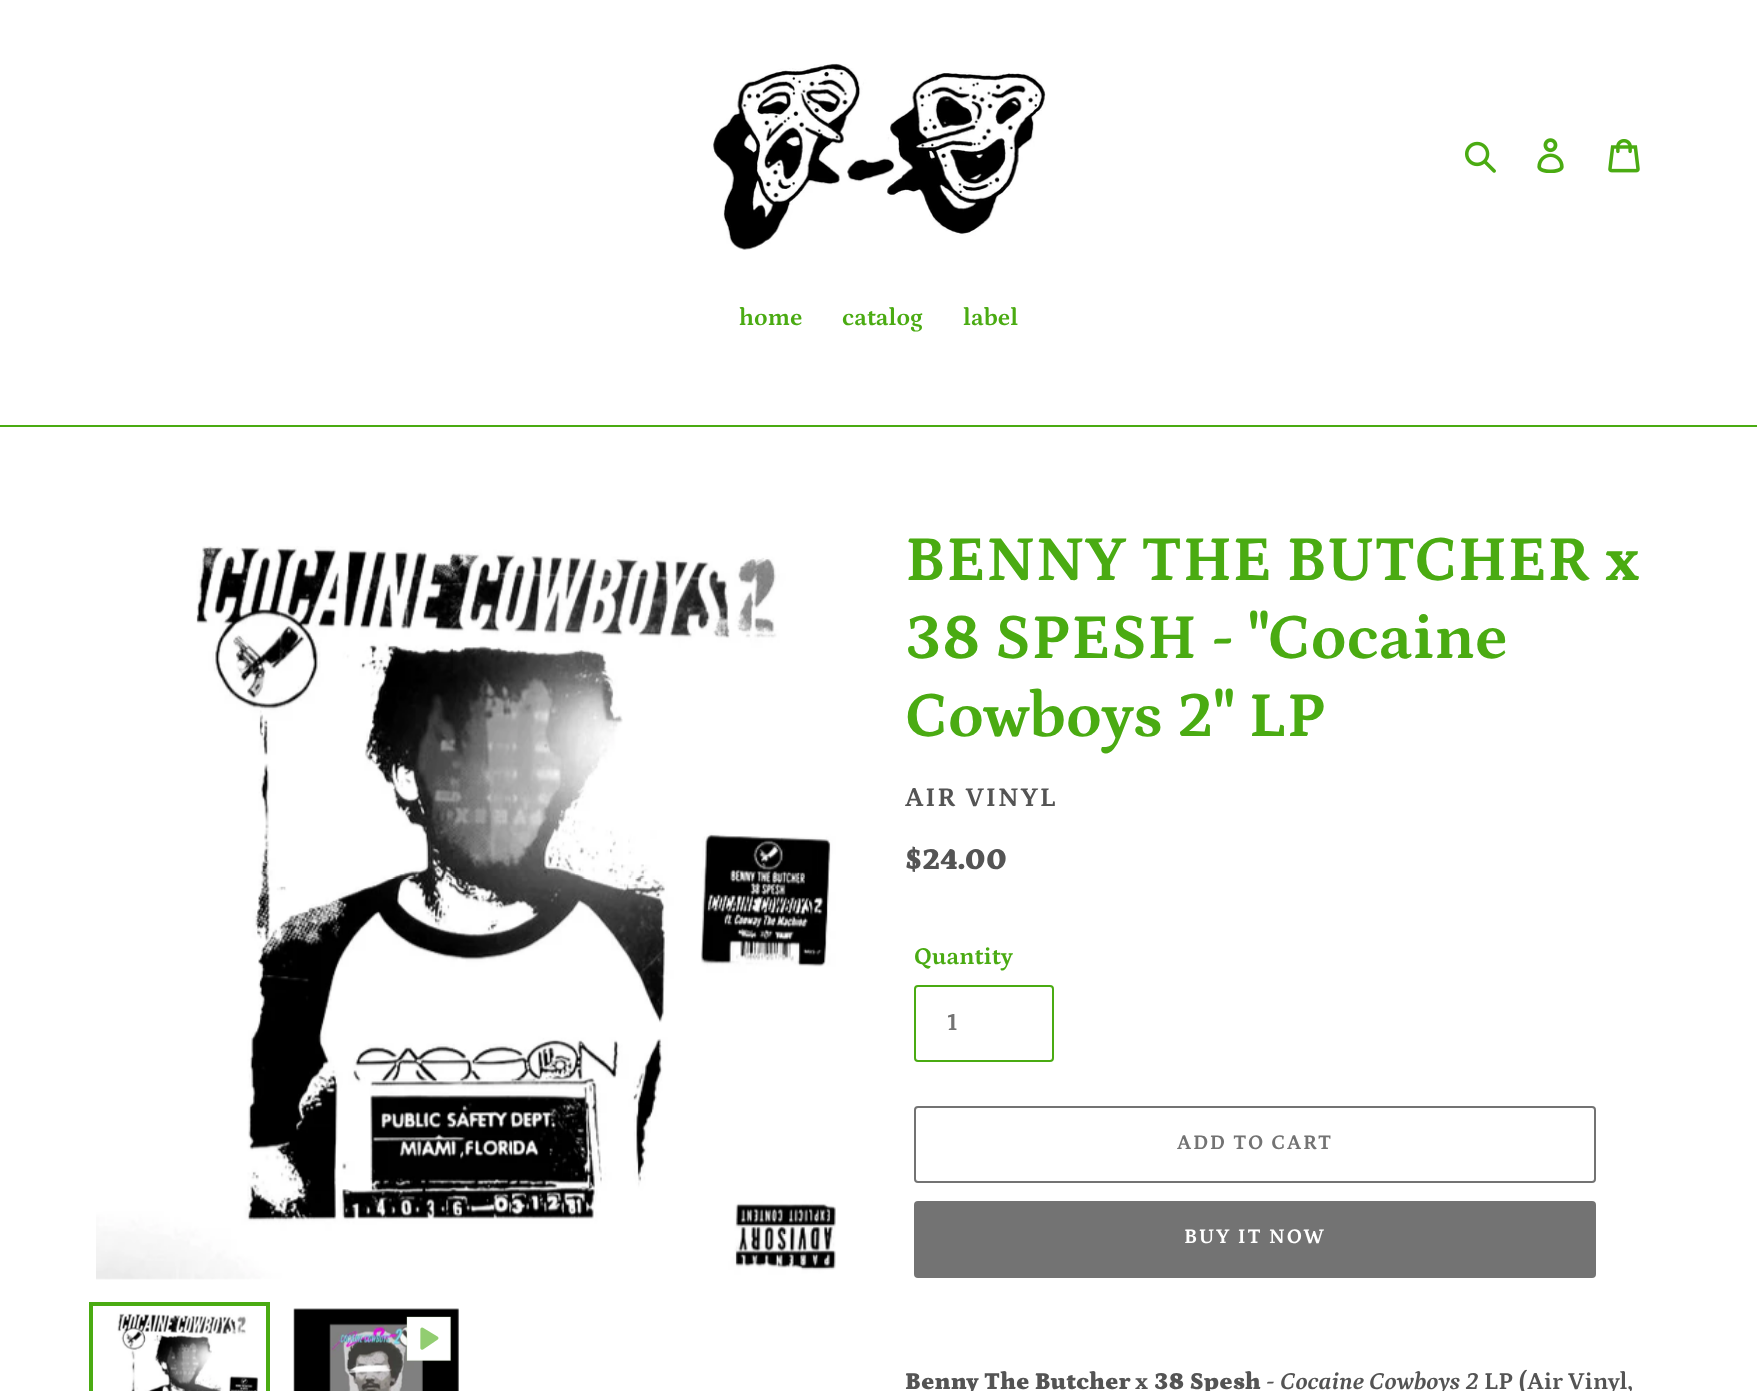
<svg xmlns="http://www.w3.org/2000/svg" width="1757" height="1391" viewBox="0 0 1757 1391">
  <rect width="100%" height="100%" fill="#fff"/>
  <image x="712" y="63" width="334" height="187" href="img/1.png"/>
  <image x="1465" y="141" width="31" height="32" href="img/2.png"/>
  <image x="1537" y="138" width="27" height="35" href="img/3.png"/>
  <image x="1608" y="139" width="32" height="34" href="img/4.png"/>
  <path d="M0 425h1757v2H0z" fill="#4aab12"/>
  <image x="96" y="546" width="740" height="734" href="img/5.png"/>
  <path d="M91 1304h177v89H91z" fill="none" stroke="#4aab12" stroke-width="4"/>
  <image x="117" y="1313" width="142" height="78" href="img/6.png"/>
  <image x="293" y="1308" width="166" height="83" href="img/7.png"/>
  <image x="406" y="1316" width="46" height="46" href="img/8.png"/>
  <rect x="915" y="986" width="138" height="75" rx="3" fill="none" stroke="#4aab12" stroke-width="2"/>
  <rect x="915" y="1107" width="680" height="75" rx="3" fill="none" stroke="#737373" stroke-width="2"/>
  <rect x="914" y="1201" width="682" height="77" rx="4" fill="#737373"/>
  <g font-family="Petrona" font-size="24.5" font-weight="bold" fill="#4aab12">
    <text x="739" y="325">home</text>
    <text x="842" y="325">catalog</text>
    <text x="963" y="325">label</text>
  </g>
  <g font-family="Petrona" font-size="64.75" font-weight="bold" fill="#4aab12">
    <text x="905" y="580">BENNY THE BUTCHER x</text>
    <text x="905" y="658">38 SPESH - "Cocaine</text>
    <text x="905" y="736">Cowboys 2" LP</text>
  </g>
  <text x="905" y="806" font-family="Petrona" font-size="27.5" font-weight="bold" letter-spacing="1.75" fill="#545454">AIR VINYL</text>
  <text x="905" y="869" font-family="Petrona" font-size="30.5" font-weight="900" fill="#545454">$24.00</text>
  <text x="914" y="964" font-family="Petrona" font-size="24.5" font-weight="bold" fill="#4aab12">Quantity</text>
  <text x="947" y="1030" font-family="Petrona" font-size="24.5" font-weight="bold" fill="#737373">1</text>
  <text x="1177" y="1149" font-family="Petrona" font-size="21" font-weight="bold" letter-spacing="1.75" fill="#737373">ADD TO CART</text>
  <text x="1184" y="1243" font-family="Petrona" font-size="21" font-weight="bold" letter-spacing="1.75" fill="#fff">BUY IT NOW</text>
  <text x="905" y="1389" font-family="Petrona" font-size="24.5" font-weight="900" fill="#545454">Benny The Butcher</text>
  <text x="1135" y="1389" font-family="Petrona" font-size="24.5" font-weight="bold" fill="#545454">x</text>
  <text x="1154" y="1389" font-family="Petrona" font-size="24.5" font-weight="900" fill="#545454">38 Spesh</text>
  <text x="1266" y="1389" font-family="Petrona" font-size="24.5" font-weight="bold" fill="#545454">-</text>
  <text x="1280" y="1389" font-family="Petrona" font-size="24.5" font-weight="bold" font-style="italic" fill="#545454">Cocaine Cowboys 2</text>
  <text x="1484" y="1389" font-family="Petrona" font-size="24.5" font-weight="bold" fill="#545454">LP (Air Vinyl,</text>
</svg>
